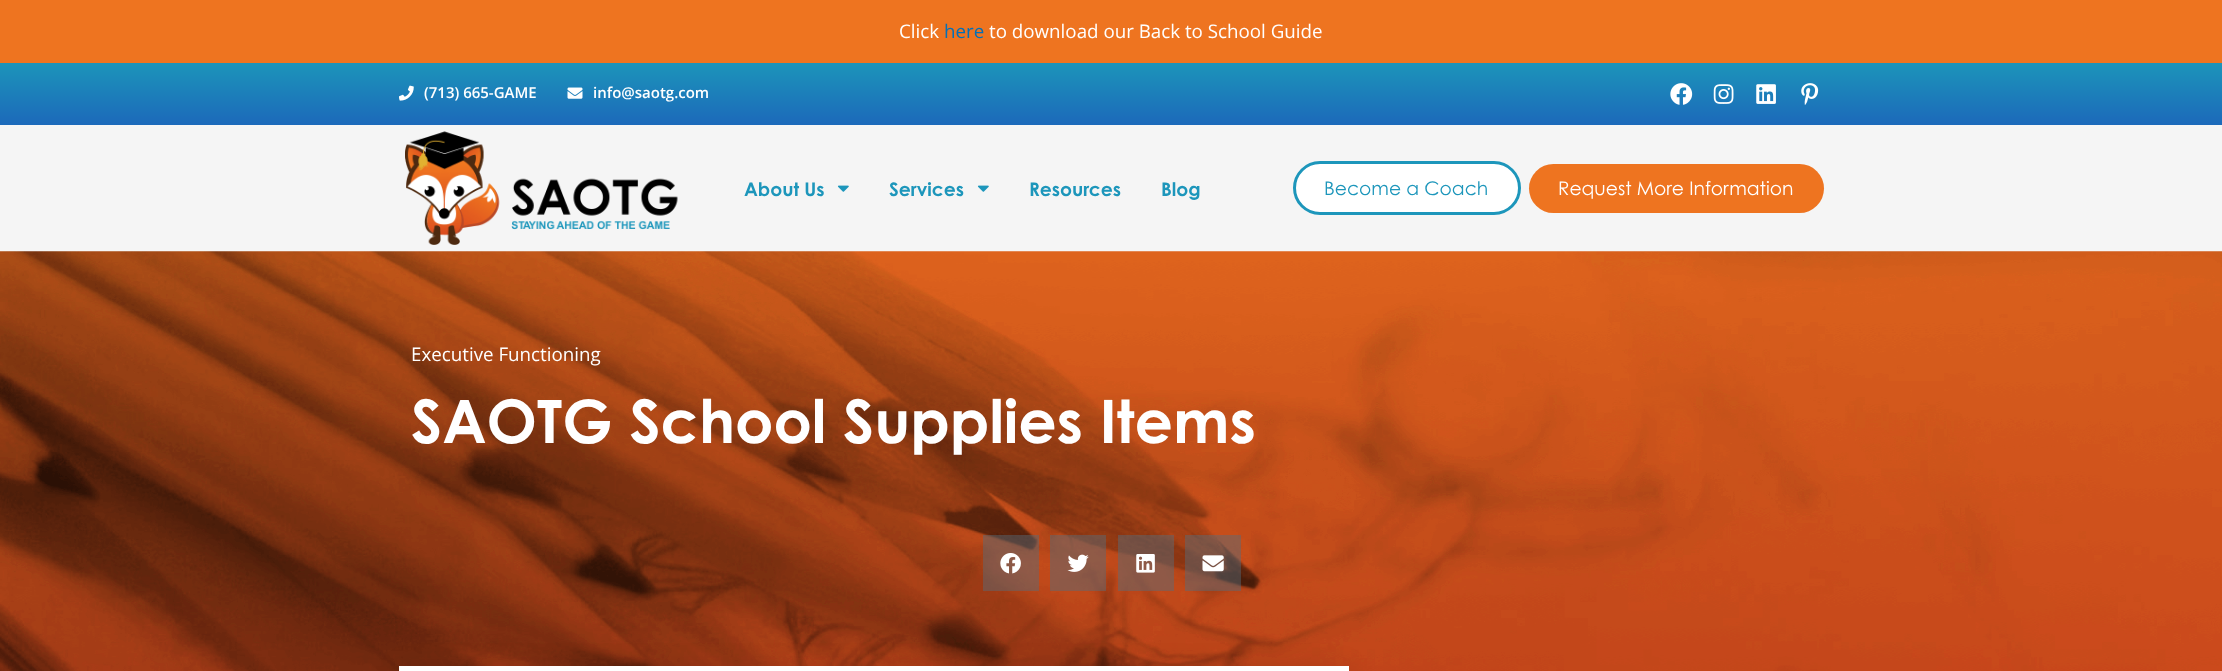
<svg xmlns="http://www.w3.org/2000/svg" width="2222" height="671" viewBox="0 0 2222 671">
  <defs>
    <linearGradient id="g1" gradientUnits="userSpaceOnUse" x1="1111" y1="62" x2="1111" y2="125"><stop offset="0" stop-color="#1c95ba"/><stop offset="1" stop-color="#1c69ba"/></linearGradient>
  </defs>
  <rect width="100%" height="100%" fill="#f5f5f5"/>
  <path d="M0 0h2222v63H0z" fill="#ee7420"/>
  <path d="M0 63h2222v62H0z" fill="url(#g1)"/>
  <image x="399" y="85" width="15" height="16" href="img/1.png"/>
  <image x="567" y="87" width="16" height="12" href="img/2.png"/>
  <image x="1670" y="83" width="23" height="22" href="img/3.png"/>
  <image x="1713" y="84" width="21" height="20" href="img/4.png"/>
  <image x="1756" y="84" width="20" height="20" href="img/5.png"/>
  <image x="1801" y="83" width="18" height="22" href="img/6.png"/>
  <image x="405" y="131" width="273" height="114" href="img/7.png"/>
  <image x="837" y="185" width="12" height="7" href="img/8.png"/>
  <image x="977" y="185" width="12" height="7" href="img/8.png"/>
  <rect x="1294.5" y="162.5" width="225" height="51" rx="25.5" fill="#fff" stroke="#1d96bb" stroke-width="3"/>
  <rect x="1529" y="164" width="295" height="49" rx="24.5" fill="#ee7420"/>
  <image x="0" y="251" width="2222" height="420" href="img/9.png"/>
  <path d="M983 535h56v56H983z" fill="#546c7c75"/>
  <image x="1000" y="553" width="21" height="21" href="img/10.png"/>
  <path d="M1050 535h56v56H1050z" fill="#546c7c75"/>
  <image x="1067" y="554" width="22" height="18" href="img/11.png"/>
  <path d="M1118 535h56v56H1118z" fill="#546c7c75"/>
  <image x="1136" y="554" width="19" height="19" href="img/12.png"/>
  <path d="M1185 535h56v56H1185z" fill="#546c7c75"/>
  <image x="1202" y="555" width="22" height="17" href="img/13.png"/>
  <path d="M399 666h950v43H399z" fill="#00000017" filter="blur(12.5px)"/>
  <path d="M399 666h950v5H399z" fill="#fff"/>
  <text x="899" y="38" font-family="Open Sans" font-size="18.75" fill="#fff">Click</text>
  <text x="944" y="38" font-family="Open Sans" font-size="18.75" fill="#0170b9">here</text>
  <text x="989" y="38" font-family="Open Sans" font-size="18.75" fill="#fff">to download our Back to School Guide</text>
  <g font-family="Open Sans" font-size="15" font-weight="600" fill="#fff">
    <text x="424" y="98">(713) 665-GAME</text>
    <text x="593" y="98">info@saotg.com</text>
  </g>
  <g font-family="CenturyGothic" font-size="18.75" font-weight="bold" fill="#1d96bb">
    <text x="744" y="196">About Us</text>
    <text x="889" y="196">Services</text>
    <text x="1029" y="196">Resources</text>
    <text x="1161" y="196">Blog</text>
  </g>
  <text x="1324" y="195" font-family="Century Gothic" font-size="18.75" fill="#1d96bb">Become a Coach</text>
  <text x="1558" y="195" font-family="Century Gothic" font-size="18.75" fill="#fff">Request More Information</text>
  <text x="411" y="361" font-family="Open Sans" font-size="18.75" fill="#fff">Executive Functioning</text>
  <text x="411" y="443" font-family="CenturyGothic" font-size="60" font-weight="bold" fill="#fff">SAOTG School Supplies Items</text>
</svg>
